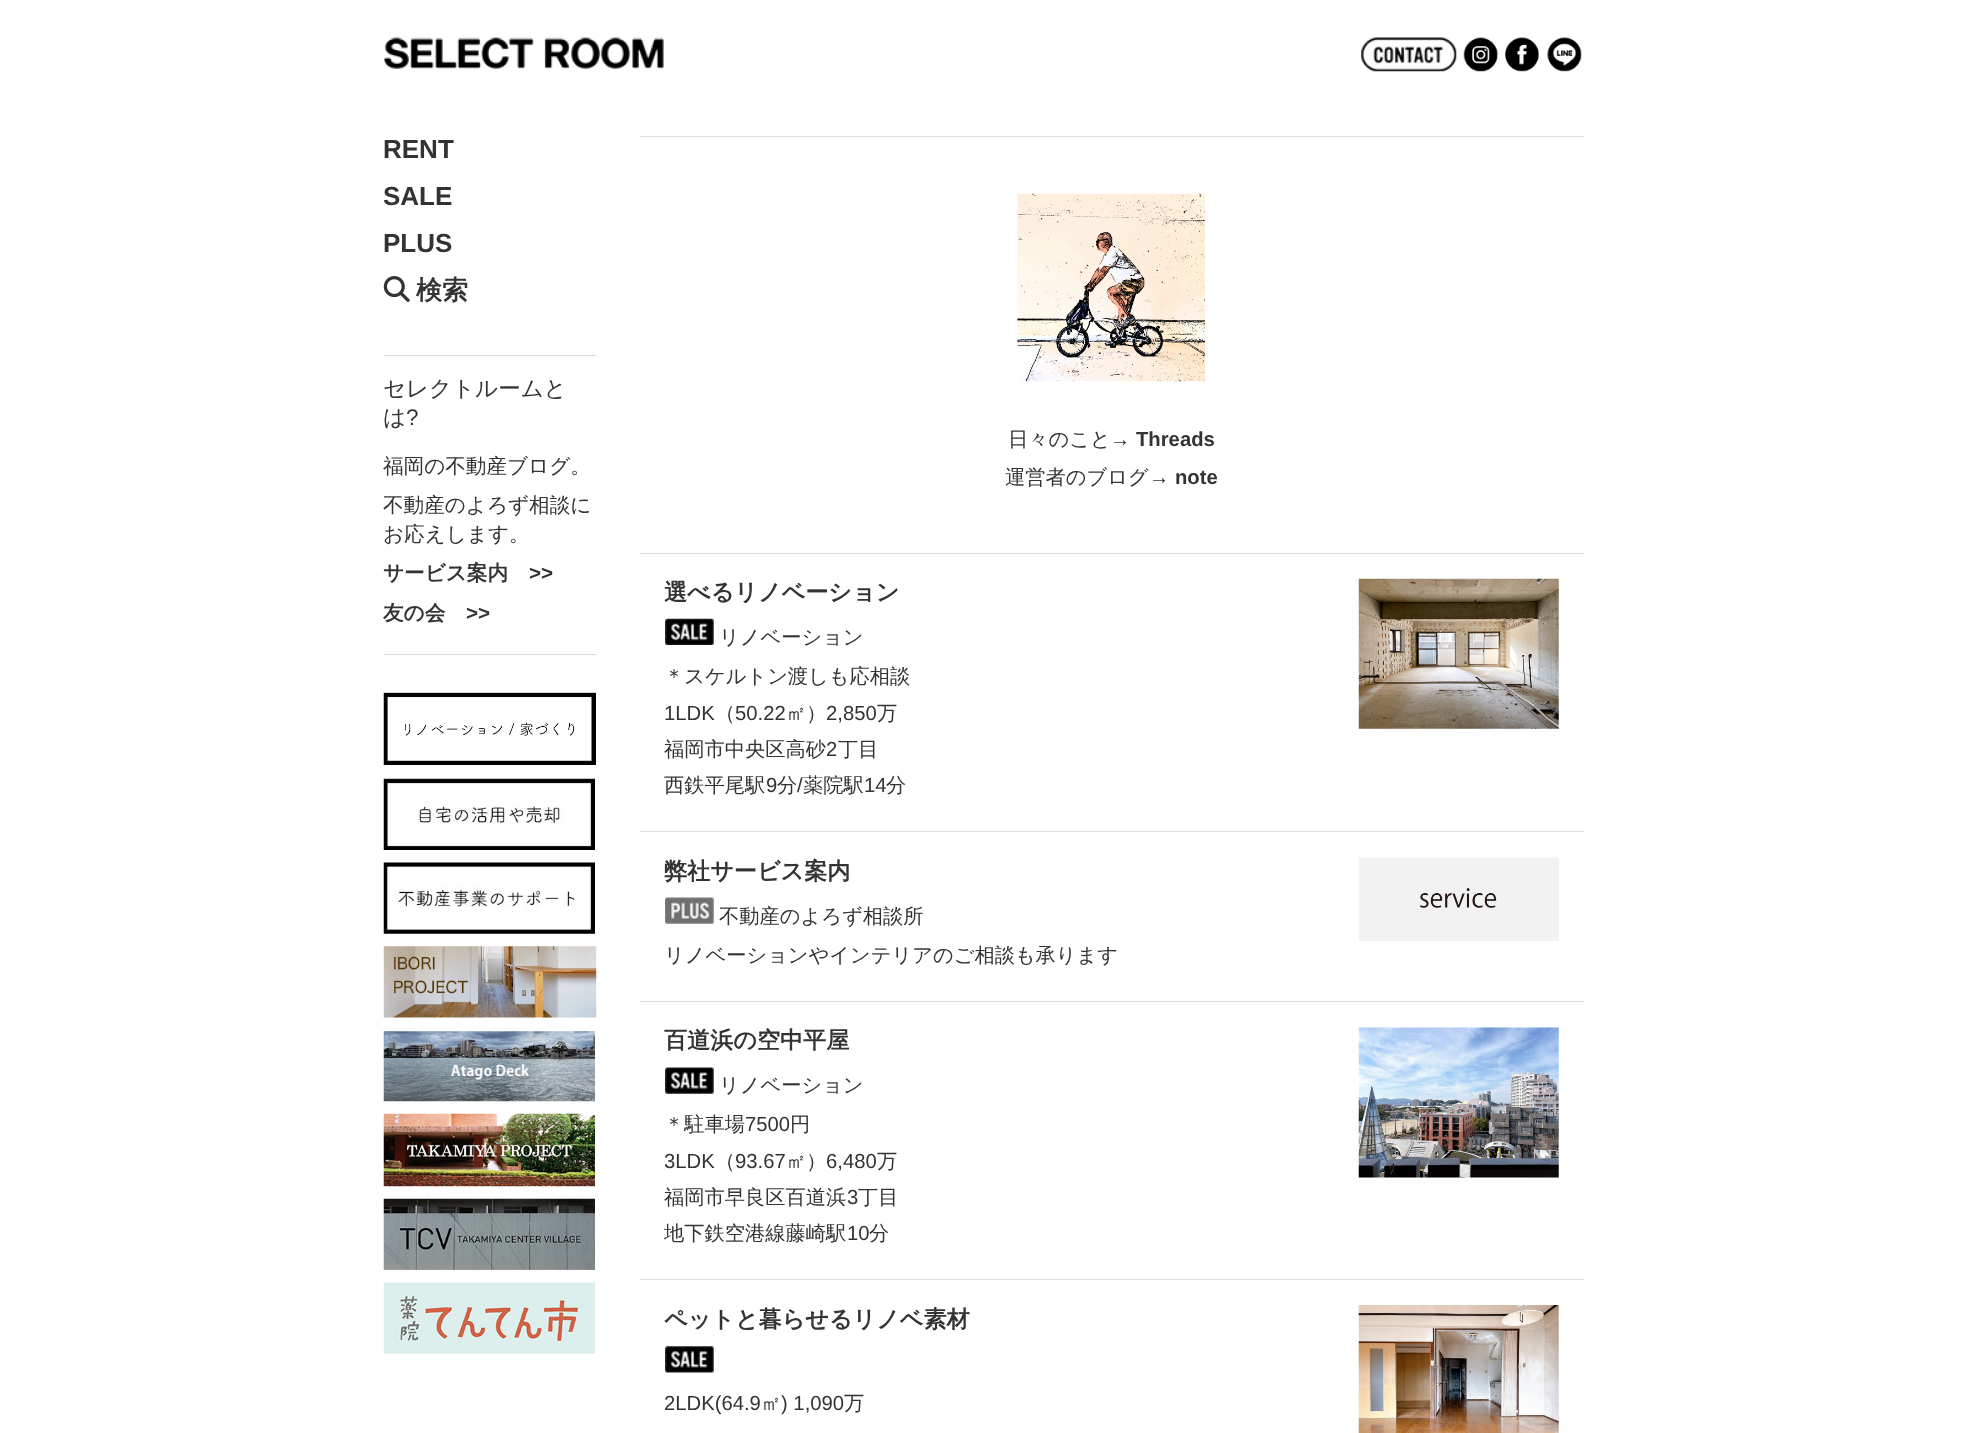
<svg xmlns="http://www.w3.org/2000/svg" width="1966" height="1433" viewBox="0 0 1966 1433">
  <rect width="100%" height="100%" fill="#fff"/>
  <image x="383" y="37" width="281" height="32" href="img/1.png"/>
  <image x="1361" y="37" width="96" height="35" href="img/2.png"/>
  <image x="1463" y="37" width="35" height="35" href="img/3.png"/>
  <image x="1505" y="37" width="34" height="35" href="img/4.png"/>
  <image x="1547" y="37" width="35" height="35" href="img/5.png"/>
  <image x="383" y="276" width="27" height="26" href="img/6.png"/>
  <path d="M384 355h212v1H384z" fill="#ddd"/>
  <path d="M384 654h212v1H384z" fill="#ddd"/>
  <image x="383" y="692" width="213" height="73" href="img/7.png"/>
  <image x="383" y="778" width="212" height="72" href="img/8.png"/>
  <image x="383" y="862" width="212" height="72" href="img/9.png"/>
  <image x="383" y="946" width="214" height="72" href="img/10.png"/>
  <image x="383" y="1031" width="212" height="71" href="img/11.png"/>
  <image x="383" y="1113" width="212" height="74" href="img/12.png"/>
  <image x="383" y="1198" width="212" height="72" href="img/13.png"/>
  <image x="383" y="1282" width="212" height="72" href="img/14.png"/>
  <path d="M640 136h944v1H640z" fill="#ddd"/>
  <image x="1017" y="193" width="188" height="189" href="img/15.png"/>
  <path d="M640 553h944v1H640z" fill="#ddd"/>
  <path d="M640 831h944v1H640z" fill="#ddd"/>
  <image x="665" y="618" width="49" height="27" href="img/16.png"/>
  <image x="1358" y="578" width="201" height="151" href="img/17.png"/>
  <path d="M640 1001h944v1H640z" fill="#ddd"/>
  <image x="665" y="897" width="49" height="27" href="img/18.png"/>
  <image x="1358" y="857" width="201" height="84" href="img/19.png"/>
  <path d="M640 1279h944v1H640z" fill="#ddd"/>
  <image x="665" y="1067" width="49" height="27" href="img/20.png"/>
  <image x="1358" y="1027" width="201" height="151" href="img/21.png"/>
  <image x="665" y="1346" width="49" height="27" href="img/22.png"/>
  <image x="1358" y="1305" width="201" height="128" href="img/23.png"/>
  <g font-family="Liberation Sans" font-size="26" font-weight="bold" fill="#333">
    <text x="383" y="158">RENT</text>
    <text x="383" y="205">SALE</text>
    <text x="383" y="252">PLUS</text>
  </g>
  <text x="416" y="299" font-family="WenQuanYi Zen Hei" font-size="26" font-weight="bold" fill="#333">検索</text>
  <g font-family="WenQuanYi Zen Hei" font-size="22.5" font-weight="500" fill="#333">
    <text x="383" y="396">セレクトルームと</text>
    <text x="383" y="425">は</text>
  </g>
  <text x="406" y="425" font-family="Liberation Sans" font-size="22.5" fill="#333">?</text>
  <g font-family="WenQuanYi Zen Hei" font-size="20.6" font-weight="500" fill="#333">
    <text x="383" y="473">福岡の不動産ブログ。</text>
    <text x="383" y="512">不動産のよろず相談に</text>
    <text x="383" y="541">お応えします。</text>
  </g>
  <text x="383" y="580" font-family="WenQuanYi Zen Hei" font-size="20.6" font-weight="bold" fill="#333">サービス案内</text>
  <text x="529" y="580" font-family="Liberation Sans" font-size="20.6" font-weight="bold" fill="#333">&gt;&gt;</text>
  <text x="383" y="620" font-family="WenQuanYi Zen Hei" font-size="20.6" font-weight="bold" fill="#333">友の会</text>
  <text x="466" y="620" font-family="Liberation Sans" font-size="20.6" font-weight="bold" fill="#333">&gt;&gt;</text>
  <text x="1008" y="446" font-family="WenQuanYi Zen Hei" font-size="20.25" font-weight="500" fill="#333">日々のこと</text>
  <text x="1110" y="446" font-family="Liberation Sans" font-size="20.25" fill="#333">→</text>
  <text x="1136" y="446" font-family="Liberation Sans" font-size="20.25" font-weight="bold" fill="#333">Threads</text>
  <text x="1005" y="484" font-family="WenQuanYi Zen Hei" font-size="20.25" font-weight="500" fill="#333">運営者のブログ</text>
  <text x="1149" y="484" font-family="Liberation Sans" font-size="20.25" fill="#333">→</text>
  <text x="1175" y="484" font-family="Liberation Sans" font-size="20.25" font-weight="bold" fill="#333">note</text>
  <text x="664" y="600" font-family="WenQuanYi Zen Hei" font-size="23.1" font-weight="bold" fill="#333">選べるリノベーション</text>
  <g font-family="WenQuanYi Zen Hei" font-size="20.25" font-weight="500" fill="#333">
    <text x="719" y="644">リノベーション</text>
    <text x="664" y="683">＊スケルトン渡しも応相談</text>
  </g>
  <text x="664" y="720" font-family="Liberation Sans" font-size="20.25" fill="#333">1LDK</text>
  <text x="715" y="720" font-family="WenQuanYi Zen Hei" font-size="20.25" font-weight="500" fill="#333">（</text>
  <text x="735" y="720" font-family="Liberation Sans" font-size="20.25" fill="#333">50.22</text>
  <text x="786" y="720" font-family="WenQuanYi Zen Hei" font-size="20.25" font-weight="500" fill="#333">㎡）</text>
  <text x="826" y="720" font-family="Liberation Sans" font-size="20.25" fill="#333">2,850</text>
  <g font-family="WenQuanYi Zen Hei" font-size="20.25" font-weight="500" fill="#333">
    <text x="877" y="720">万</text>
    <text x="664" y="756">福岡市中央区高砂</text>
  </g>
  <text x="826" y="756" font-family="Liberation Sans" font-size="20.25" fill="#333">2</text>
  <g font-family="WenQuanYi Zen Hei" font-size="20.25" font-weight="500" fill="#333">
    <text x="838" y="756">丁目</text>
    <text x="664" y="792">西鉄平尾駅</text>
  </g>
  <text x="766" y="792" font-family="Liberation Sans" font-size="20.25" fill="#333">9</text>
  <text x="777" y="792" font-family="WenQuanYi Zen Hei" font-size="20.25" font-weight="500" fill="#333">分</text>
  <text x="797" y="792" font-family="Liberation Sans" font-size="20.25" fill="#333">/</text>
  <text x="803" y="792" font-family="WenQuanYi Zen Hei" font-size="20.25" font-weight="500" fill="#333">薬院駅</text>
  <text x="864" y="792" font-family="Liberation Sans" font-size="20.25" fill="#333">14</text>
  <text x="886" y="792" font-family="WenQuanYi Zen Hei" font-size="20.25" font-weight="500" fill="#333">分</text>
  <text x="664" y="879" font-family="WenQuanYi Zen Hei" font-size="23.1" font-weight="bold" fill="#333">弊社サービス案内</text>
  <g font-family="WenQuanYi Zen Hei" font-size="20.25" font-weight="500" fill="#333">
    <text x="719" y="923">不動産のよろず相談所</text>
    <text x="664" y="962">リノベーションやインテリアのご相談も承ります</text>
  </g>
  <text x="664" y="1048" font-family="WenQuanYi Zen Hei" font-size="23.1" font-weight="bold" fill="#333">百道浜の空中平屋</text>
  <g font-family="WenQuanYi Zen Hei" font-size="20.25" font-weight="500" fill="#333">
    <text x="719" y="1092">リノベーション</text>
    <text x="664" y="1131">＊駐車場</text>
  </g>
  <text x="745" y="1131" font-family="Liberation Sans" font-size="20.25" fill="#333">7500</text>
  <text x="790" y="1131" font-family="WenQuanYi Zen Hei" font-size="20.25" font-weight="500" fill="#333">円</text>
  <text x="664" y="1168" font-family="Liberation Sans" font-size="20.25" fill="#333">3LDK</text>
  <text x="715" y="1168" font-family="WenQuanYi Zen Hei" font-size="20.25" font-weight="500" fill="#333">（</text>
  <text x="735" y="1168" font-family="Liberation Sans" font-size="20.25" fill="#333">93.67</text>
  <text x="786" y="1168" font-family="WenQuanYi Zen Hei" font-size="20.25" font-weight="500" fill="#333">㎡）</text>
  <text x="826" y="1168" font-family="Liberation Sans" font-size="20.25" fill="#333">6,480</text>
  <g font-family="WenQuanYi Zen Hei" font-size="20.25" font-weight="500" fill="#333">
    <text x="877" y="1168">万</text>
    <text x="664" y="1204">福岡市早良区百道浜</text>
  </g>
  <text x="847" y="1204" font-family="Liberation Sans" font-size="20.25" fill="#333">3</text>
  <g font-family="WenQuanYi Zen Hei" font-size="20.25" font-weight="500" fill="#333">
    <text x="858" y="1204">丁目</text>
    <text x="664" y="1240">地下鉄空港線藤崎駅</text>
  </g>
  <text x="847" y="1240" font-family="Liberation Sans" font-size="20.25" fill="#333">10</text>
  <text x="869" y="1240" font-family="WenQuanYi Zen Hei" font-size="20.25" font-weight="500" fill="#333">分</text>
  <text x="664" y="1327" font-family="WenQuanYi Zen Hei" font-size="23.1" font-weight="bold" fill="#333">ペットと暮らせるリノベ素材</text>
  <text x="664" y="1410" font-family="Liberation Sans" font-size="20.25" fill="#333">2LDK(64.9</text>
  <text x="761" y="1410" font-family="WenQuanYi Zen Hei" font-size="20.25" font-weight="500" fill="#333">㎡</text>
  <text x="781" y="1410" font-family="Liberation Sans" font-size="20.25" fill="#333">) 1,090</text>
  <text x="844" y="1410" font-family="WenQuanYi Zen Hei" font-size="20.25" font-weight="500" fill="#333">万</text>
</svg>
